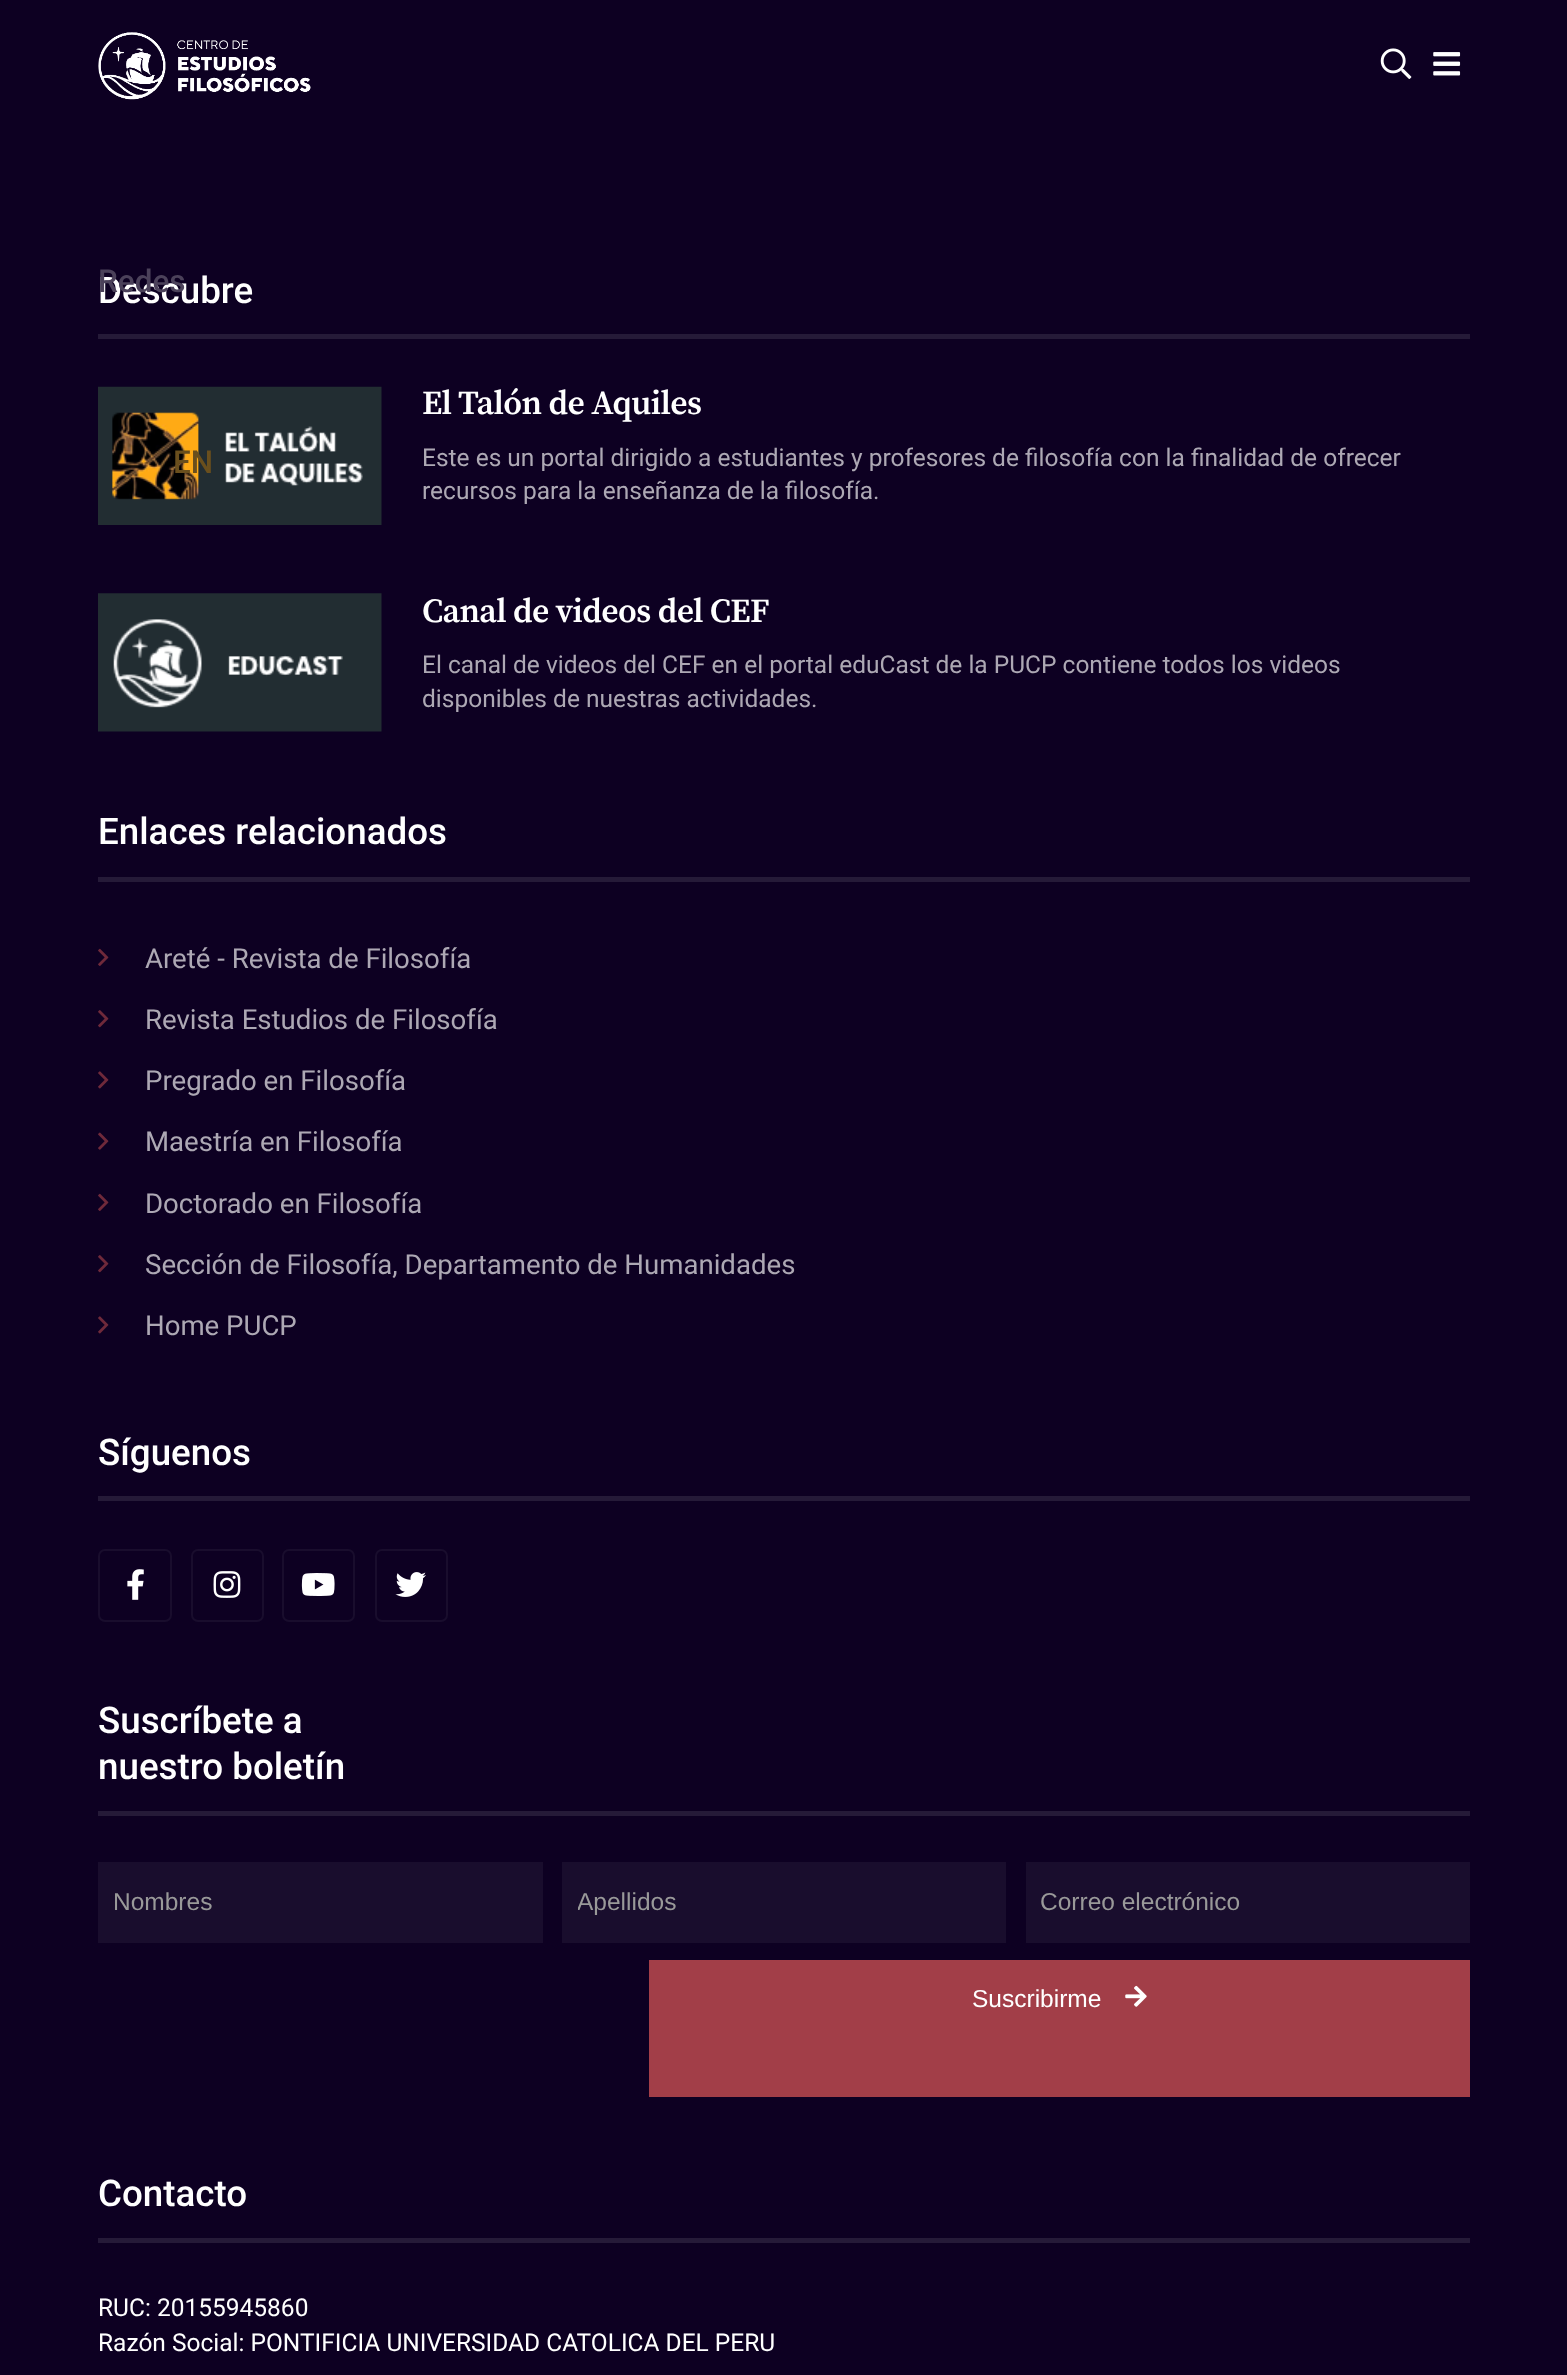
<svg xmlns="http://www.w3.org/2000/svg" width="1567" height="2375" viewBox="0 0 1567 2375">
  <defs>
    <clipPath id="clip1"><path d="M578 1888h413v28H578z"/></clipPath>
  </defs>
  <rect width="100%" height="100%" fill="#0d0022"/>
  <image x="98" y="32" width="213" height="68" href="img/1.png"/>
  <image x="1380" y="48" width="32" height="31" href="img/2.png"/>
  <image x="1433" y="52" width="28" height="24" href="img/3.png"/>
  <path d="M98 334h1372v5H98z" fill="#251a38"/>
  <image x="98" y="386" width="284" height="139" href="img/4.png"/>
  <image x="98" y="593" width="284" height="139" href="img/5.png"/>
  <path d="M98 877h1372v5H98z" fill="#251a38"/>
  <image x="98" y="948" width="11" height="18" href="img/6.png"/>
  <image x="98" y="1010" width="11" height="18" href="img/7.png"/>
  <image x="98" y="1071" width="11" height="18" href="img/8.png"/>
  <image x="98" y="1132" width="11" height="18" href="img/9.png"/>
  <image x="98" y="1193" width="11" height="18" href="img/6.png"/>
  <image x="98" y="1255" width="11" height="18" href="img/7.png"/>
  <image x="98" y="1316" width="11" height="18" href="img/8.png"/>
  <path d="M98 1496h1372v5H98z" fill="#251a38"/>
  <rect x="99" y="1550" width="72" height="71" rx="6" fill="none" stroke="#190d2d" stroke-width="2"/>
  <image x="127" y="1569" width="17" height="31" href="img/10.png"/>
  <rect x="192" y="1550" width="71" height="71" rx="6" fill="none" stroke="#190d2d" stroke-width="2"/>
  <image x="213" y="1571" width="28" height="27" href="img/11.png"/>
  <rect x="283" y="1550" width="71" height="71" rx="6" fill="none" stroke="#190d2d" stroke-width="2"/>
  <image x="301" y="1573" width="34" height="23" href="img/12.png"/>
  <rect x="376" y="1550" width="71" height="71" rx="6" fill="none" stroke="#190d2d" stroke-width="2"/>
  <image x="395" y="1572" width="31" height="25" href="img/13.png"/>
  <path d="M98 1811h1372v5H98z" fill="#251a38"/>
  <path d="M98 1862h445v81H98z" fill="#190d2d"/>
  <path d="M562 1862h444v81H562z" fill="#190d2d"/>
  <path d="M1026 1862h444v81H1026z" fill="#190d2d"/>
  <path d="M649 1960h821v137H649z" fill="#a23e48"/>
  <image x="1125" y="1985" width="22" height="22" href="img/14.png"/>
  <path d="M98 2238h1372v5H98z" fill="#251a38"/>
  <text x="173" y="473" font-family="Roboto" font-size="31.5" font-weight="500" fill="#6a4f1d">EN</text>
  <text x="98" y="303" font-family="Roboto" font-size="36.75" font-weight="500" fill="#fff">Descubre</text>
  <text x="98" y="292" font-family="Roboto" font-size="31.5" font-weight="500" fill="#4b415a">Redes</text>
  <text x="422" y="414" font-family="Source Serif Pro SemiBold" font-size="33.75" font-weight="600" letter-spacing="-0.6" fill="#fff">El Talón de Aquiles</text>
  <g font-family="Roboto" font-size="24.5" fill="#ada8b4">
    <text x="422" y="466">Este es un portal dirigido a estudiantes y profesores de filosofía con la finalidad de ofrecer</text>
    <text x="422" y="499">recursos para la enseñanza de la filosofía.</text>
  </g>
  <text x="422" y="622" font-family="Source Serif Pro SemiBold" font-size="33.75" font-weight="600" letter-spacing="-0.6" fill="#fff">Canal de videos del CEF</text>
  <g font-family="Roboto" font-size="24.5" fill="#ada8b4">
    <text x="422" y="673">El canal de videos del CEF en el portal eduCast de la PUCP contiene todos los videos</text>
    <text x="422" y="707">disponibles de nuestras actividades.</text>
  </g>
  <text x="98" y="844" font-family="Roboto" font-size="36.75" font-weight="500" fill="#fff">Enlaces relacionados</text>
  <g font-family="Roboto" font-size="27.6" fill="#ada8b4">
    <text x="145" y="968">Areté - Revista de Filosofía</text>
    <text x="145" y="1029">Revista Estudios de Filosofía</text>
    <text x="145" y="1090">Pregrado en Filosofía</text>
    <text x="145" y="1151">Maestría en Filosofía</text>
    <text x="145" y="1213">Doctorado en Filosofía</text>
    <text x="145" y="1274">Sección de Filosofía, Departamento de Humanidades</text>
    <text x="145" y="1335">Home PUCP</text>
  </g>
  <g font-family="Roboto" font-size="36.75" font-weight="500" fill="#fff">
    <text x="98" y="1465">Síguenos</text>
    <text x="98" y="1733">Suscríbete a</text>
    <text x="98" y="1779">nuestro boletín</text>
  </g>
  <text x="113" y="1910" font-family="Liberation Sans" font-size="24.5" fill="#999">Nombres</text>
  <g clip-path="url(#clip1)">
    <text x="577" y="1910" font-family="Liberation Sans" font-size="24.5" fill="#999">Apellidos</text>
  </g>
  <text x="1040" y="1910" font-family="Liberation Sans" font-size="24.5" fill="#999">Correo electrónico</text>
  <text x="972" y="2007" font-family="Liberation Sans" font-size="24.5" fill="#fff">Suscribirme</text>
  <text x="98" y="2206" font-family="Roboto" font-size="36.75" font-weight="500" fill="#fff">Contacto</text>
  <g font-family="Roboto" font-size="24.5" fill="#fff">
    <text x="98" y="2316">RUC: 20155945860</text>
    <text x="98" y="2351">Razón Social: PONTIFICIA UNIVERSIDAD CATOLICA DEL PERU</text>
  </g>
</svg>
